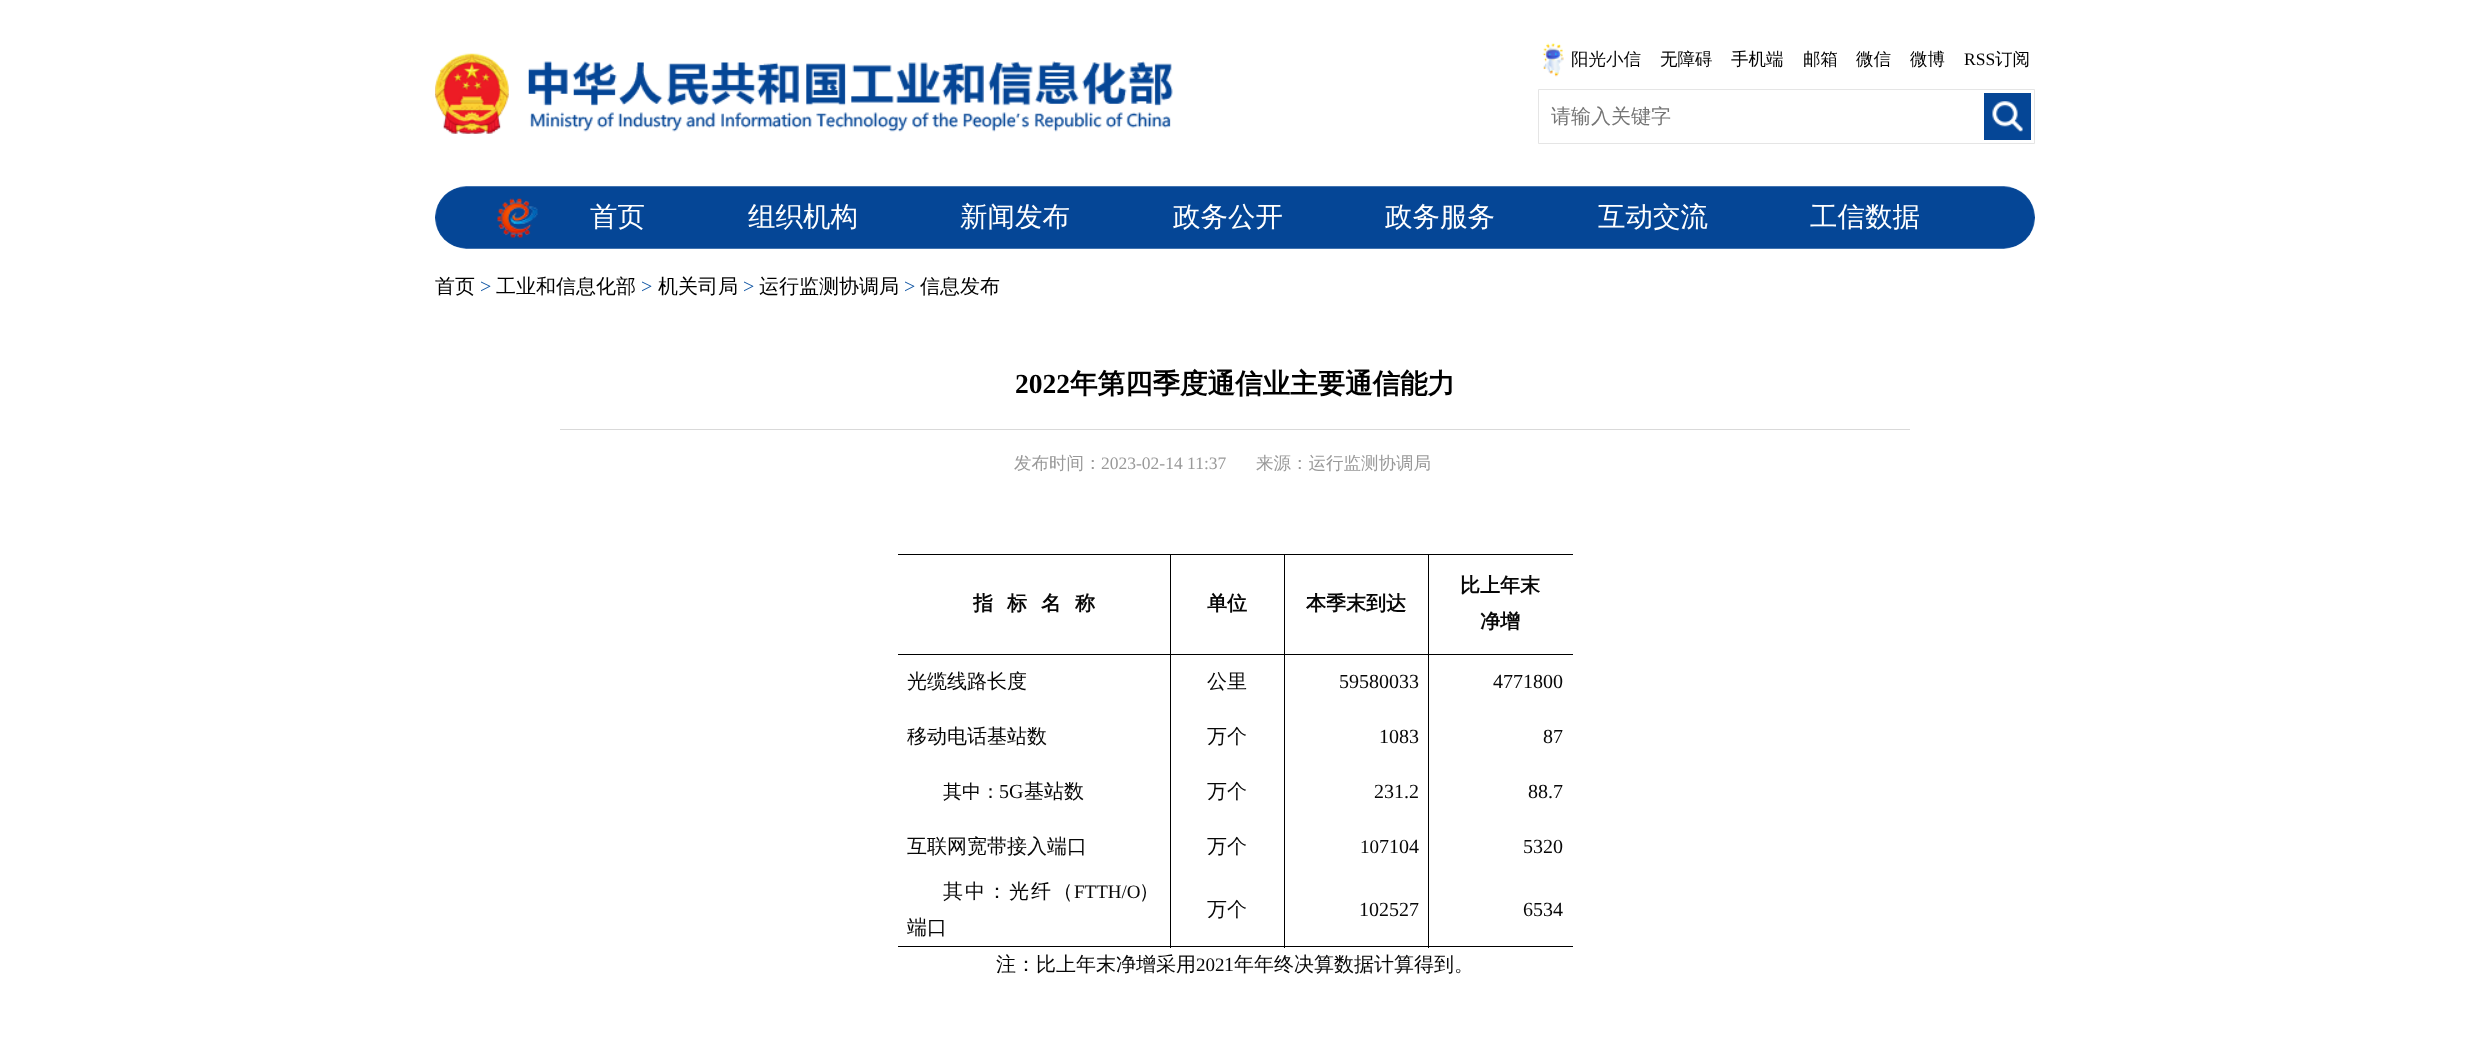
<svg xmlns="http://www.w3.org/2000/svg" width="2470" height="1047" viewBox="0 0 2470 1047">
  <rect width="100%" height="100%" fill="#fff"/>
  <image x="435" y="53" width="74" height="81" href="img/1.png"/>
  <image x="528" y="61" width="645" height="71" href="img/2.png"/>
  <image x="1542" y="43" width="22" height="34" href="img/3.png"/>
  <path d="M1538.5 89.5h496v54H1538.5z" fill="none" stroke="#e5e5e5"/>
  <path d="M1984 93h47v47H1984z" fill="#054696"/>
  <image x="1992" y="101" width="31" height="31" href="img/4.png"/>
  <image x="435" y="186" width="1600" height="63" href="img/5.png"/>
  <image x="497" y="198" width="41" height="40" href="img/6.png"/>
  <path d="M560 429h1350v1H560z" fill="#d9d9d9"/>
  <path d="M898 554h675v1H898z" fill="#000"/>
  <path d="M1428 946h145v1H1428z" fill="#000"/>
  <path d="M1428 654h1v294H1428z" fill="#000"/>
  <path d="M1428 654h145v1H1428z" fill="#000"/>
  <path d="M1428 554h1v101H1428z" fill="#000"/>
  <path d="M1284 946h145v1H1284z" fill="#000"/>
  <path d="M1284 654h1v294H1284z" fill="#000"/>
  <path d="M1284 654h145v1H1284z" fill="#000"/>
  <path d="M1284 554h1v101H1284z" fill="#000"/>
  <path d="M1170 946h115v1H1170z" fill="#000"/>
  <path d="M1170 654h1v294H1170z" fill="#000"/>
  <path d="M1170 654h115v1H1170z" fill="#000"/>
  <path d="M1170 554h1v101H1170z" fill="#000"/>
  <path d="M898 654h273v1H898z" fill="#000"/>
  <path d="M898 946h273v1H898z" fill="#000"/>
  <g font-family="WenQuanYi Zen Hei" font-size="17.5" font-weight="500" fill="#000">
    <text x="1571" y="65">阳光小信</text>
    <text x="1660" y="65">无障碍</text>
    <text x="1731" y="65">手机端</text>
    <text x="1803" y="65">邮箱</text>
    <text x="1856" y="65">微信</text>
    <text x="1910" y="65">微博</text>
  </g>
  <text x="1964" y="65" font-family="Liberation Serif" font-size="17.5" fill="#000">RSS</text>
  <text x="1995" y="65" font-family="WenQuanYi Zen Hei" font-size="17.5" font-weight="500" fill="#000">订阅</text>
  <text x="1551" y="123" font-family="WenQuanYi Zen Hei" font-size="20" font-weight="500" fill="#757575">请输入关键字</text>
  <g font-family="WenQuanYi Zen Hei" font-size="27.5" font-weight="500" fill="#fff">
    <text x="590" y="226">首页</text>
    <text x="748" y="226">组织机构</text>
    <text x="960" y="226">新闻发布</text>
    <text x="1173" y="226">政务公开</text>
    <text x="1385" y="226">政务服务</text>
    <text x="1598" y="226">互动交流</text>
    <text x="1810" y="226">工信数据</text>
  </g>
  <text x="435" y="293" font-family="WenQuanYi Zen Hei" font-size="20" font-weight="500" fill="#000">首页</text>
  <text x="480" y="293" font-family="Liberation Serif" font-size="20" fill="#1156a4">&gt;</text>
  <text x="496" y="293" font-family="WenQuanYi Zen Hei" font-size="20" font-weight="500" fill="#000">工业和信息化部</text>
  <text x="641" y="293" font-family="Liberation Serif" font-size="20" fill="#1156a4">&gt;</text>
  <text x="658" y="293" font-family="WenQuanYi Zen Hei" font-size="20" font-weight="500" fill="#000">机关司局</text>
  <text x="743" y="293" font-family="Liberation Serif" font-size="20" fill="#1156a4">&gt;</text>
  <text x="759" y="293" font-family="WenQuanYi Zen Hei" font-size="20" font-weight="500" fill="#000">运行监测协调局</text>
  <text x="904" y="293" font-family="Liberation Serif" font-size="20" fill="#1156a4">&gt;</text>
  <text x="920" y="293" font-family="WenQuanYi Zen Hei" font-size="20" font-weight="500" fill="#000">信息发布</text>
  <text x="1015" y="393" font-family="Liberation Serif" font-size="27.5" font-weight="bold" fill="#000">2022</text>
  <text x="1070" y="393" font-family="WenQuanYi Zen Hei" font-size="27.5" font-weight="bold" fill="#000">年第四季度通信业主要通信能力</text>
  <text x="1014" y="469" font-family="WenQuanYi Zen Hei" font-size="17.5" font-weight="500" fill="#999">发布时间：</text>
  <text x="1101" y="469" font-family="Liberation Serif" font-size="17.5" fill="#999">2023-02-14 11:37</text>
  <text x="1256" y="469" font-family="WenQuanYi Zen Hei" font-size="17.5" font-weight="500" fill="#999">来源：运行监测协调局</text>
  <g font-family="WenQuanYi Zen Hei" font-size="20" font-weight="bold" fill="#070707">
    <text x="973" y="610">指</text>
    <text x="1007" y="610">标</text>
    <text x="1041" y="610">名</text>
    <text x="1075" y="610">称</text>
    <text x="1207" y="610">单位</text>
    <text x="1306" y="610">本季末到达</text>
    <text x="1460" y="592">比上年末</text>
    <text x="1480" y="628">净增</text>
  </g>
  <g font-family="WenQuanYi Zen Hei" font-size="20" font-weight="500" fill="#070707">
    <text x="907" y="688">光缆线路长度</text>
    <text x="1207" y="688">公里</text>
  </g>
  <g font-family="Liberation Serif" font-size="20" fill="#070707">
    <text x="1339" y="688">59580033</text>
    <text x="1493" y="688">4771800</text>
  </g>
  <g font-family="WenQuanYi Zen Hei" font-size="20" font-weight="500" fill="#070707">
    <text x="907" y="743">移动电话基站数</text>
    <text x="1207" y="743">万个</text>
  </g>
  <g font-family="Liberation Serif" font-size="20" fill="#070707">
    <text x="1379" y="743">1083</text>
    <text x="1543" y="743">87</text>
  </g>
  <text x="943" y="798" font-family="WenQuanYi Zen Hei" font-size="19" font-weight="500" fill="#070707">其中：</text>
  <text x="999" y="798" font-family="Liberation Serif" font-size="20" fill="#070707">5G</text>
  <g font-family="WenQuanYi Zen Hei" font-size="20" font-weight="500" fill="#070707">
    <text x="1024" y="798">基站数</text>
    <text x="1207" y="798">万个</text>
  </g>
  <g font-family="Liberation Serif" font-size="20" fill="#070707">
    <text x="1374" y="798">231.2</text>
    <text x="1528" y="798">88.7</text>
  </g>
  <g font-family="WenQuanYi Zen Hei" font-size="20" font-weight="500" fill="#070707">
    <text x="907" y="853">互联网宽带接入端口</text>
    <text x="1207" y="853">万个</text>
  </g>
  <text x="1360" y="853" font-family="Liberation Serif" font-size="19" fill="#070707">10</text>
  <g font-family="Liberation Serif" font-size="20" fill="#070707">
    <text x="1379" y="853">7104</text>
    <text x="1523" y="853">5320</text>
  </g>
  <text x="943" y="898" font-family="WenQuanYi Zen Hei" font-size="20" font-weight="500" letter-spacing="2" fill="#070707">其中：光纤（</text>
  <text x="1074" y="898" font-family="Liberation Serif" font-size="19" fill="#070707">FTTH/O</text>
  <g font-family="WenQuanYi Zen Hei" font-size="20" font-weight="500" fill="#070707">
    <text x="1139" y="898">）</text>
    <text x="907" y="934">端口</text>
    <text x="1207" y="916">万个</text>
  </g>
  <g font-family="Liberation Serif" font-size="20" fill="#070707">
    <text x="1359" y="916">102527</text>
    <text x="1523" y="916">6534</text>
  </g>
  <text x="996" y="971" font-family="WenQuanYi Zen Hei" font-size="20" font-weight="500" fill="#070707">注：比上年末净增采用</text>
  <text x="1196" y="971" font-family="Liberation Serif" font-size="19" fill="#070707">202</text>
  <text x="1224" y="971" font-family="Liberation Serif" font-size="20" fill="#070707">1</text>
  <text x="1234" y="971" font-family="WenQuanYi Zen Hei" font-size="20" font-weight="500" fill="#070707">年年终决算数据计算得到。</text>
</svg>
